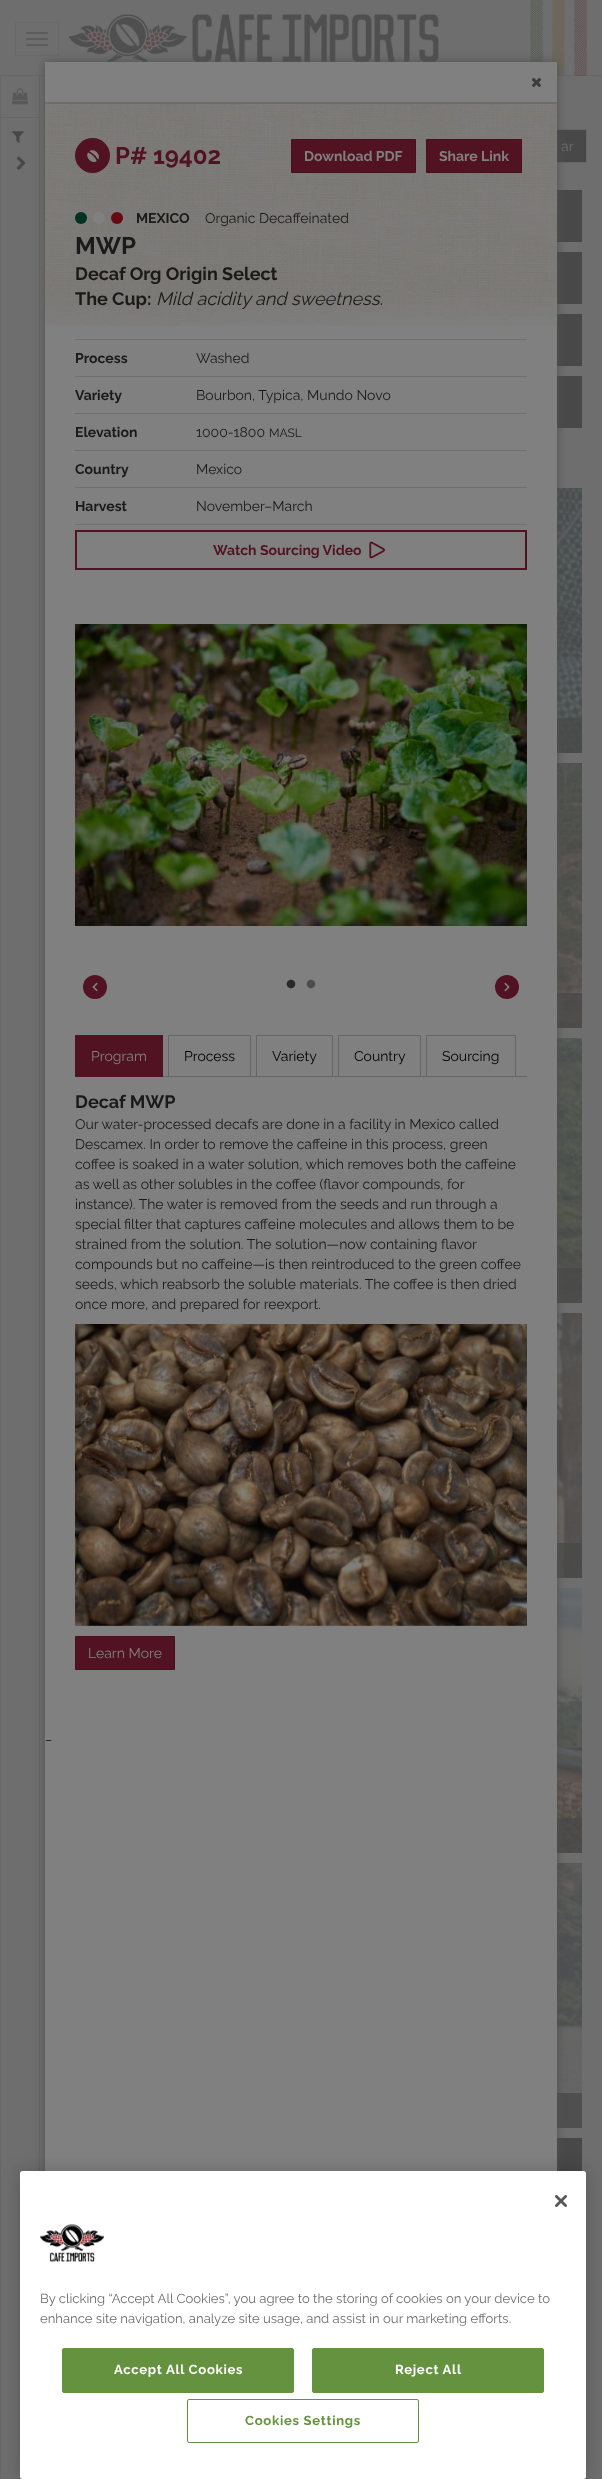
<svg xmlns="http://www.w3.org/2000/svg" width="602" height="2479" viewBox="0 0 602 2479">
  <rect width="100%" height="100%" fill="#6e6e6e"/>
  <path d="M40 75h562v1H40z" fill="#666"/>
  <image x="530" y="0" width="57" height="76" href="img/1.png"/>
  <path d="M15.5 22.5h43v33H15.5z" fill="none" stroke="#696969"/>
  <rect x="26" y="32" width="22" height="2" rx="1" fill="#5c5c5c"/>
  <rect x="26" y="38" width="22" height="2" rx="1" fill="#5c5c5c"/>
  <rect x="26" y="44" width="22" height="2" rx="1" fill="#5c5c5c"/>
  <image x="68" y="14" width="371" height="48" href="img/2.png"/>
  <path d="M0.5 75.5h39v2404H0.5z" fill="none" stroke="#666"/>
  <path d="M0 117h40v1H0z" fill="#666"/>
  <path d="M557 130h29v32H557z" fill="#484848"/>
  <path d="M527.5 129.5h59v33H527.5z" fill="none" stroke="#666"/>
  <path d="M557 190h25v52H557z" fill="#484848"/>
  <path d="M557 252h25v52H557z" fill="#484848"/>
  <path d="M557 314h25v52H557z" fill="#484848"/>
  <path d="M557 376h25v52H557z" fill="#484848"/>
  <image x="557" y="488" width="25" height="265" href="img/16.png"/>
  <path d="M557 718h25v35H557z" fill="#484848bf"/>
  <image x="557" y="763" width="25" height="265" href="img/17.png"/>
  <path d="M557 993h25v35H557z" fill="#484848bf"/>
  <image x="557" y="1038" width="25" height="265" href="img/18.png"/>
  <path d="M557 1268h25v35H557z" fill="#484848bf"/>
  <image x="557" y="1313" width="25" height="265" href="img/19.png"/>
  <path d="M557 1543h25v35H557z" fill="#484848bf"/>
  <image x="557" y="1588" width="25" height="265" href="img/20.png"/>
  <path d="M557 1818h25v35H557z" fill="#484848bf"/>
  <image x="557" y="1863" width="25" height="265" href="img/21.png"/>
  <path d="M557 2093h25v35H557z" fill="#484848bf"/>
  <path d="M557 2138h25v33H557z" fill="#484848"/>
  <path d="M45 62h512v2355H45z" fill="#515151" filter="blur(5px)"/>
  <path d="M45 62h512v2109H45z" fill="#808080"/>
  <path d="M45 102h512v2H45z" fill="#6d6d6d"/>
  <image x="531" y="77" width="11" height="11" href="img/3.png"/>
  <image x="45" y="104" width="512" height="222" href="img/4.png"/>
  <circle cx="92.5" cy="155.5" r="17.5" fill="#511322"/>
  <image x="87" y="150" width="12" height="13" href="img/5.png"/>
  <path d="M291.5 139.5h124v33H291.5z" fill="#511322" stroke="#47101d"/>
  <path d="M426.5 139.5h95v33H426.5z" fill="#511322" stroke="#47101d"/>
  <circle cx="81" cy="218" r="6" fill="#003221"/>
  <circle cx="99" cy="218" r="6" fill="#808080"/>
  <circle cx="117" cy="218" r="6" fill="#670913"/>
  <path d="M75 524h452v1H75z" fill="#6f7173"/>
  <path d="M75 339h452v1H75z" fill="#6f6f6f"/>
  <path d="M75 376h452v1H75z" fill="#6f6f6f"/>
  <path d="M75 413h452v1H75z" fill="#6f6f6f"/>
  <path d="M75 450h452v1H75z" fill="#6f6f6f"/>
  <path d="M75 487h452v1H75z" fill="#6f6f6f"/>
  <path d="M76 531h450v38H76z" fill="none" stroke="#511322" stroke-width="2"/>
  <image x="369" y="541" width="16" height="18" href="img/6.png"/>
  <image x="75" y="624" width="452" height="302" href="img/7.png"/>
  <circle cx="95" cy="987" r="12" fill="#511322"/>
  <image x="92" y="982" width="6" height="10" href="img/8.png"/>
  <image x="286" y="979" width="10" height="10" href="img/9.png"/>
  <image x="306" y="979" width="10" height="10" href="img/10.png"/>
  <circle cx="507" cy="987" r="12" fill="#511322"/>
  <image x="504" y="982" width="6" height="10" href="img/11.png"/>
  <path d="M163 1076h364v1H163z" fill="#666"/>
  <path d="M75 1035h88v42H75z" fill="#511322"/>
  <path d="M168.5 1035.5h82v41H168.5z" fill="none" stroke="#666"/>
  <path d="M256.5 1035.5h76v41H256.5z" fill="none" stroke="#666"/>
  <path d="M338.5 1035.5h82v41H338.5z" fill="none" stroke="#666"/>
  <path d="M426.5 1035.5h89v41H426.5z" fill="none" stroke="#666"/>
  <image x="75" y="1324" width="452" height="302" href="img/12.png"/>
  <path d="M75.5 1636.5h99v33H75.5z" fill="#511322" stroke="#47101d"/>
  <image x="12" y="88" width="16" height="17" href="img/13.png"/>
  <image x="12" y="131" width="12" height="12" href="img/14.png"/>
  <image x="16" y="156" width="10" height="14" href="img/15.png"/>
  <rect x="20" y="2171" width="566" height="308" rx="2.5" fill="#00000033" filter="blur(9px)"/>
  <rect x="20" y="2171" width="566" height="308" rx="2.5" fill="#fff"/>
  <image x="555" y="2195" width="12" height="12" href="img/22.png"/>
  <image x="40" y="2224" width="64" height="38" href="img/23.png"/>
  <rect x="62.5" y="2348.5" width="231" height="44" rx="1.5" fill="#65923e" stroke="#65923e"/>
  <rect x="312.5" y="2348.5" width="231" height="44" rx="1.5" fill="#65923e" stroke="#65923e"/>
  <rect x="187.5" y="2399.5" width="231" height="43" rx="1.5" fill="none" stroke="#65923e"/>
  <text x="115" y="164" font-family="Raleway" font-size="24" font-weight="bold" fill="#511322">P# 19402</text>
  <g font-family="Raleway" font-size="14" font-weight="bold" fill="#808080">
    <text x="304" y="161">Download PDF</text>
    <text x="439" y="161">Share Link</text>
  </g>
  <text x="136" y="223" font-family="Raleway" font-size="14" font-weight="bold" fill="#1a1a1a">MEXICO</text>
  <text x="205" y="223" font-family="Raleway" font-size="14" fill="#1a1a1a">Organic Decaffeinated</text>
  <text x="75" y="254" font-family="Raleway" font-size="24" font-weight="bold" fill="#1a1a1a">MWP</text>
  <g font-family="Raleway" font-size="18" font-weight="bold" fill="#1a1a1a">
    <text x="75" y="280">Decaf Org Origin Select</text>
    <text x="75" y="305">The Cup:</text>
  </g>
  <text x="156" y="305" font-family="Raleway" font-size="18" font-style="italic" fill="#1a1a1a">Mild acidity and sweetness.</text>
  <text x="75" y="363" font-family="Raleway" font-size="14" font-weight="bold" fill="#1a1a1a">Process</text>
  <text x="196" y="363" font-family="Raleway" font-size="14" fill="#1a1a1a">Washed</text>
  <text x="75" y="400" font-family="Raleway" font-size="14" font-weight="bold" fill="#1a1a1a">Variety</text>
  <text x="196" y="400" font-family="Raleway" font-size="14" fill="#1a1a1a">Bourbon, Typica, Mundo Novo</text>
  <text x="75" y="437" font-family="Raleway" font-size="14" font-weight="bold" fill="#1a1a1a">Elevation</text>
  <text x="196" y="437" font-family="Raleway" font-size="14" fill="#1a1a1a">1000-1800</text>
  <text x="269" y="437" font-family="Raleway" font-size="12" fill="#1a1a1a">MASL</text>
  <text x="75" y="474" font-family="Raleway" font-size="14" font-weight="bold" fill="#1a1a1a">Country</text>
  <text x="196" y="474" font-family="Raleway" font-size="14" fill="#1a1a1a">Mexico</text>
  <text x="75" y="511" font-family="Raleway" font-size="14" font-weight="bold" fill="#1a1a1a">Harvest</text>
  <text x="196" y="511" font-family="Raleway" font-size="14" fill="#1a1a1a">November–March</text>
  <text x="213" y="555" font-family="Raleway" font-size="14" font-weight="bold" fill="#511322">Watch Sourcing Video</text>
  <text x="91" y="1061" font-family="Raleway" font-size="14" fill="#808080">Program</text>
  <g font-family="Raleway" font-size="14" fill="#000">
    <text x="184" y="1061">Process</text>
    <text x="272" y="1061">Variety</text>
    <text x="354" y="1061">Country</text>
    <text x="442" y="1061">Sourcing</text>
  </g>
  <text x="75" y="1108" font-family="Raleway" font-size="18" font-weight="bold" fill="#1a1a1a">Decaf MWP</text>
  <g font-family="Raleway" font-size="14" fill="#1a1a1a">
    <text x="75" y="1129">Our water-processed decafs are done in a facility in Mexico called</text>
    <text x="75" y="1149">Descamex. In order to remove the caffeine in this process, green</text>
    <text x="75" y="1169">coffee is soaked in a water solution, which removes both the caffeine</text>
    <text x="75" y="1189">as well as other solubles in the coffee (flavor compounds, for</text>
    <text x="75" y="1209">instance). The water is removed from the seeds and run through a</text>
    <text x="75" y="1229">special filter that captures caffeine molecules and allows them to be</text>
    <text x="75" y="1249">strained from the solution. The solution—now containing flavor</text>
    <text x="75" y="1269">compounds but no caffeine—is then reintroduced to the green coffee</text>
    <text x="75" y="1289">seeds, which reabsorb the soluble materials. The coffee is then dried</text>
    <text x="75" y="1309">once more, and prepared for reexport.</text>
  </g>
  <text x="88" y="1658" font-family="Raleway" font-size="14" fill="#808080">Learn More</text>
  <text x="45" y="1740" font-family="Raleway" font-size="14" fill="#1a1a1a">_</text>
  <text x="561" y="151" font-family="Raleway" font-size="14" fill="#6e6e6e">ar</text>
  <g font-family="Raleway" font-size="13.1" fill="#6e6e6e">
    <text x="40" y="2303">By clicking “Accept All Cookies”, you agree to the storing of cookies on your device to</text>
    <text x="40" y="2323">enhance site navigation, analyze site usage, and assist in our marketing efforts.</text>
  </g>
  <g font-family="Raleway" font-size="13.1" font-weight="bold" letter-spacing="0.7" fill="#fff">
    <text x="114" y="2374">Accept All Cookies</text>
    <text x="395" y="2374">Reject All</text>
  </g>
  <text x="245" y="2425" font-family="Raleway" font-size="13.1" font-weight="bold" letter-spacing="0.7" fill="#65923e">Cookies Settings</text>
</svg>
